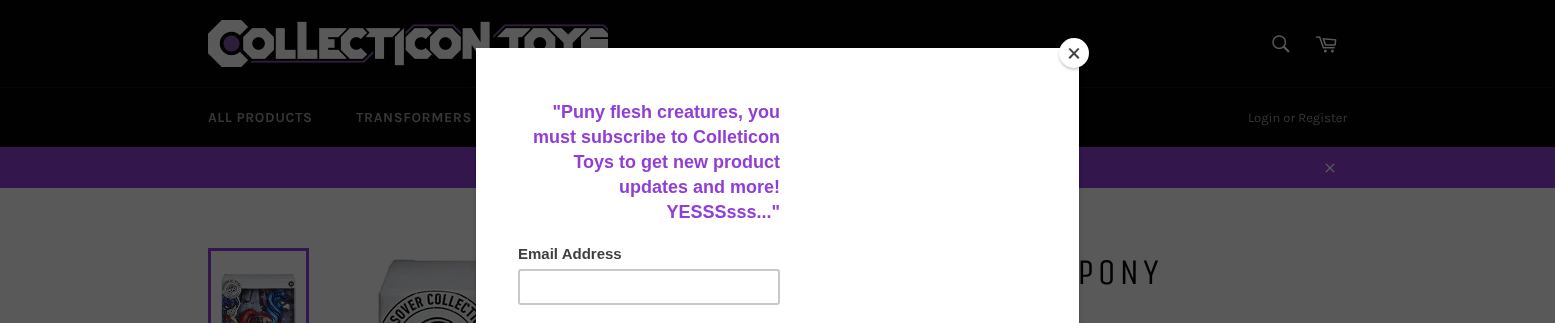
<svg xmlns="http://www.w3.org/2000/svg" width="1555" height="323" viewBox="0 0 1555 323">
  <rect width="100%" height="100%" fill="#010101"/>
  <image x="208" y="20" width="400" height="47" href="img/2.png"/>
  <path d="M0 87h1555v1H0z" fill="#060606"/>
  <path d="M0 147h1555v41H0z" fill="#33164c"/>
  <path d="M0 188h1555v135H0z" fill="#595959"/>
  <image x="376" y="256" width="100" height="67" href="img/7.png"/>
  <path d="M476 50h603v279H476z" fill="#00000033" filter="blur(2px)"/>
  <image x="476" y="48" width="603" height="275" href="img/1.png"/>
  <rect x="1059" y="40" width="30" height="30" rx="15" fill="#00000033" filter="blur(1px)"/>
  <circle cx="1074" cy="53" r="15" fill="#fff"/>
  <path d="M1078 48L1079.5 49L1070 59L1068.5 57.5Z" fill="#414141"/>
  <path d="M1068.5 49L1070 48L1079.5 57.5L1078 59Z" fill="#414141"/>
  <image x="1272" y="35" width="18" height="18" href="img/3.png"/>
  <image x="1315" y="36" width="22" height="17" href="img/4.png"/>
  <image x="1325" y="163" width="10" height="10" href="img/5.png"/>
  <image x="220" y="272" width="76" height="51" href="img/6.png"/>
  <path d="M209.5 249.5h98v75H209.5z" fill="none" stroke="#33164c" stroke-width="3"/>
  <g font-family="Karla" font-size="14" font-weight="bold" letter-spacing="0.6" fill="#363636">
    <text x="208" y="122">ALL PRODUCTS</text>
    <text x="356" y="122">TRANSFORMERS</text>
  </g>
  <text x="1248" y="122" font-family="Karla" font-size="13" fill="#363636">Login or Register</text>
  <text x="1077" y="284" font-family="Unica One" font-size="36" letter-spacing="3.5" fill="#010101">PONY</text>
</svg>
